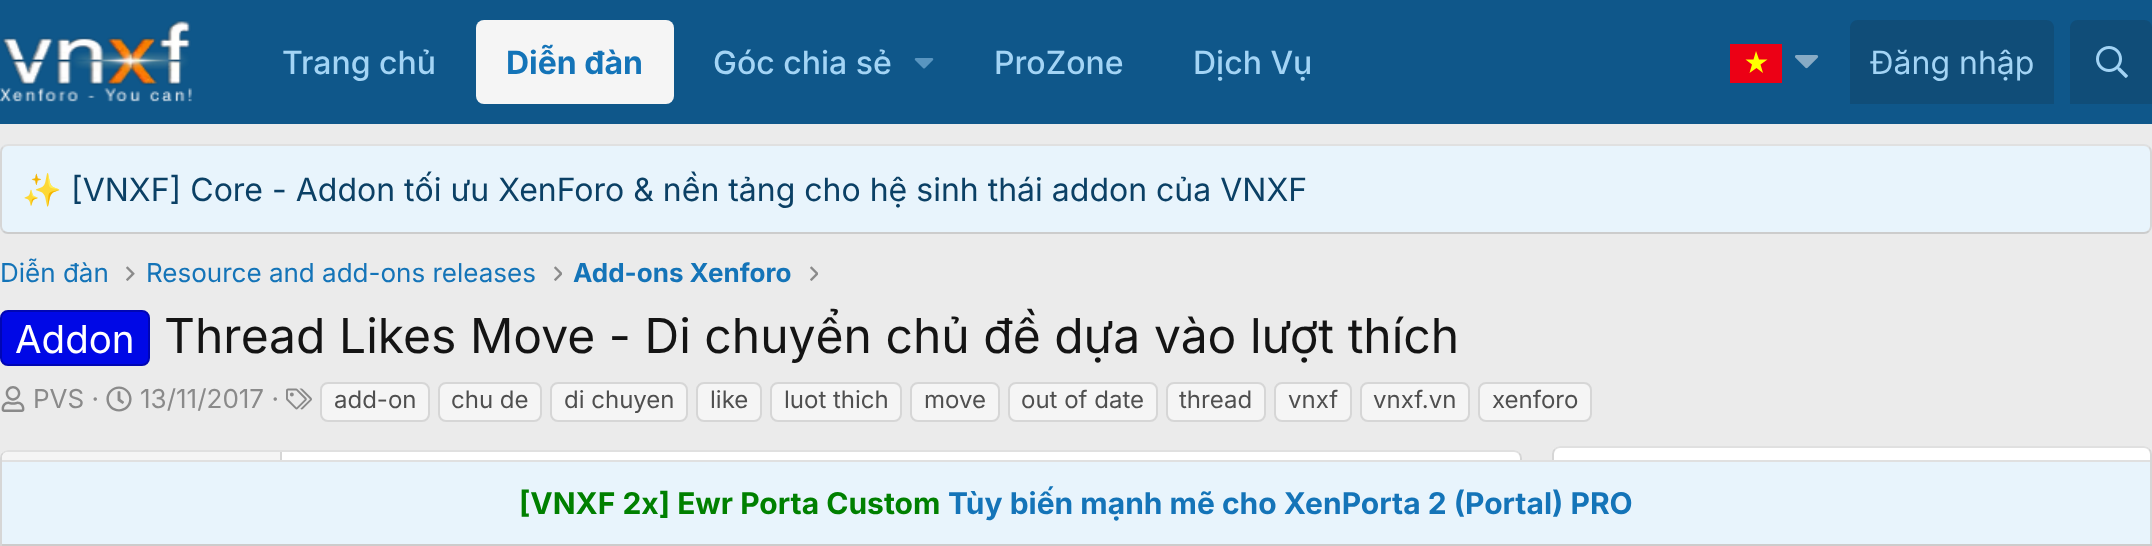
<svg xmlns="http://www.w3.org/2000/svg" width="2152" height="546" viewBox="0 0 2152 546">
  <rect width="100%" height="100%" fill="#ebebeb"/>
  <path d="M0 0h2152v124H0z" fill="#0f578a"/>
  <image x="0" y="20" width="192" height="82" href="img/1.png"/>
  <rect x="476" y="20" width="198" height="84" rx="8" fill="#f5f5f5"/>
  <image x="914" y="58" width="20" height="11" href="img/2.png"/>
  <path d="M1730 44h52v39H1730z" fill="#ec0015"/>
  <path d="M1763 73L1756.5 68L1749.5 73L1752 64.5L1745.5 59.5H1753.5L1756 51L1759 59.5H1767.5L1760.5 64.5Z" fill="#ff0" fill-rule="evenodd"/>
  <image x="1795" y="55" width="24" height="14" href="img/3.png"/>
  <path d="M1858 20H2046C2050.5 20 2054 23.5 2054 28V104H1850V28C1850 23.5 1853.5 20 1858 20Z" fill="#104d78"/>
  <path d="M2078 20H2144C2148.5 20 2152 23.5 2152 28V104H2070V28C2070 23.5 2073.5 20 2078 20Z" fill="#104d78"/>
  <image x="2096" y="46" width="32" height="32" href="img/4.png"/>
  <rect y="144" width="2152" height="90" rx="8" fill="#e8f4fc"/>
  <path d="M3 147C4.5 145.5 6 145 8 145H2144C2146 145 2147.5 145.5 2149 147" fill="none" stroke="#e0e0e0" stroke-width="2"/>
  <path d="M2149 147C2150.5 148.5 2151 150 2151 152V226C2151 228 2150.5 229.5 2149 231" fill="none" stroke="#d6d6d6" stroke-width="2"/>
  <path d="M2149 231C2147.5 232.5 2146 233 2144 233H8C6 233 4.5 232.5 3 231" fill="none" stroke="#ccc" stroke-width="2"/>
  <path d="M3 231C1.5 229.5 1 228 1 226V152C1 150 1.5 148.5 3 147" fill="none" stroke="#d6d6d6" stroke-width="2"/>
  <image x="126" y="266" width="9" height="15" href="img/5.png"/>
  <image x="554" y="266" width="8" height="15" href="img/6.png"/>
  <image x="810" y="266" width="8" height="15" href="img/6.png"/>
  <rect x="1" y="311" width="148" height="54" rx="7" fill="#0008e6" stroke="#0006b3" stroke-width="2"/>
  <image x="1" y="386" width="24" height="26" href="img/7.png"/>
  <image x="106" y="386" width="26" height="26" href="img/8.png"/>
  <image x="286" y="388" width="26" height="22" href="img/9.png"/>
  <rect x="321" y="383" width="108" height="38" rx="7" fill="#f5f5f5" stroke="#d6d6d6" stroke-width="2"/>
  <rect x="439" y="383" width="102" height="38" rx="7" fill="#f5f5f5" stroke="#d6d6d6" stroke-width="2"/>
  <rect x="551" y="383" width="136" height="38" rx="7" fill="#f5f5f5" stroke="#d6d6d6" stroke-width="2"/>
  <rect x="697" y="383" width="64" height="38" rx="7" fill="#f5f5f5" stroke="#d6d6d6" stroke-width="2"/>
  <rect x="771" y="383" width="130" height="38" rx="7" fill="#f5f5f5" stroke="#d6d6d6" stroke-width="2"/>
  <rect x="911" y="383" width="88" height="38" rx="7" fill="#f5f5f5" stroke="#d6d6d6" stroke-width="2"/>
  <rect x="1009" y="383" width="148" height="38" rx="7" fill="#f5f5f5" stroke="#d6d6d6" stroke-width="2"/>
  <rect x="1167" y="383" width="98" height="38" rx="7" fill="#f5f5f5" stroke="#d6d6d6" stroke-width="2"/>
  <rect x="1275" y="383" width="76" height="38" rx="7" fill="#f5f5f5" stroke="#d6d6d6" stroke-width="2"/>
  <rect x="1361" y="383" width="108" height="38" rx="7" fill="#f5f5f5" stroke="#d6d6d6" stroke-width="2"/>
  <rect x="1479" y="383" width="112" height="38" rx="7" fill="#f5f5f5" stroke="#d6d6d6" stroke-width="2"/>
  <rect y="450" width="1522" height="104" rx="8" fill="#fff"/>
  <path d="M3 453C4.5 451.5 6 451 8 451H1514C1516 451 1517.5 451.5 1519 453" fill="none" stroke="#e0e0e0" stroke-width="2"/>
  <path d="M1519 453C1520.5 454.5 1521 456 1521 458V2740C1521 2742 1520.5 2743.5 1519 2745" fill="none" stroke="#d6d6d6" stroke-width="2"/>
  <path d="M3 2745C1.5 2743.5 1 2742 1 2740V458C1 456 1.5 454.5 3 453" fill="none" stroke="#d6d6d6" stroke-width="2"/>
  <path d="M8 452H282V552H8C4.5 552 2 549.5 2 546V458C2 454.5 4.5 452 8 452Z" fill="#f5f5f5"/>
  <path d="M280 452h2v8H280z" fill="#d6d6d6"/>
  <rect x="1552" y="446" width="600" height="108" rx="8" fill="#fff"/>
  <path d="M1555 449C1556.5 447.5 1558 447 1560 447H2144C2146 447 2147.5 447.5 2149 449" fill="none" stroke="#e0e0e0" stroke-width="2"/>
  <path d="M2149 449C2150.5 450.5 2151 452 2151 454V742C2151 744 2150.5 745.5 2149 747" fill="none" stroke="#d6d6d6" stroke-width="2"/>
  <path d="M1555 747C1553.5 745.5 1553 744 1553 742V454C1553 452 1553.5 450.5 1555 449" fill="none" stroke="#d6d6d6" stroke-width="2"/>
  <path d="M2 462h2148v82H2z" fill="#e8f4fc"/>
  <path d="M0 460h2152v2H0z" fill="#e0e0e0"/>
  <path d="M2150 460h2v2H2150z" fill="#d6d6d6"/>
  <path d="M0 544h2152v2H0z" fill="#ccc"/>
  <path d="M0 460h2v86H0z" fill="#d6d6d6"/>
  <text x="282" y="74" font-family="Inter" font-size="32" font-weight="500" fill="#a3d4f5">Trang chủ</text>
  <text x="506" y="74" font-family="Inter" font-size="32" font-weight="bold" fill="#1474b8">Diễn đàn</text>
  <g font-family="Inter" font-size="32" font-weight="500" fill="#a3d4f5">
    <text x="713" y="74">Góc chia sẻ</text>
    <text x="994" y="74">ProZone</text>
    <text x="1193" y="74">Dịch Vụ</text>
  </g>
  <text x="1870" y="74" font-family="Inter" font-size="32" fill="#a3d4f5">Đăng nhập</text>
  <text x="22" y="201" font-family="Noto Color Emoji" font-size="32" fill="#0b4065">✨</text>
  <text x="71" y="201" font-family="Inter" font-size="32" fill="#0b4065">[VNXF] Core - Addon tối ưu XenForo &amp; nền tảng cho hệ sinh thái addon của VNXF</text>
  <g font-family="Inter" font-size="26" fill="#1474b8">
    <text x="0" y="282">Diễn đàn</text>
    <text x="146" y="282">Resource and add-ons releases</text>
  </g>
  <text x="573" y="282" font-family="Inter" font-size="26" font-weight="bold" fill="#1474b8">Add-ons Xenforo</text>
  <text x="15" y="353" font-family="Inter" font-size="38.5" fill="#fff">Addon</text>
  <text x="164" y="353" word-spacing="0.1" font-family="Inter" font-size="48" fill="#141414">Thread Likes Move - Di chuyển chủ đề dựa vào lượt thích</text>
  <g font-family="Inter" font-size="26" fill="#8a8a8a">
    <text x="33" y="408">PVS ·</text>
    <text x="140" y="408">13/11/2017 ·</text>
  </g>
  <g font-family="Inter" font-size="24" fill="#4f4f4f">
    <text x="334" y="408">add-on</text>
    <text x="451" y="408">chu de</text>
    <text x="564" y="408">di chuyen</text>
    <text x="710" y="408">like</text>
    <text x="784" y="408">luot thich</text>
    <text x="924" y="408">move</text>
    <text x="1021" y="408">out of date</text>
    <text x="1179" y="408">thread</text>
    <text x="1288" y="408">vnxf</text>
    <text x="1373" y="408">vnxf.vn</text>
    <text x="1492" y="408">xenforo</text>
  </g>
  <text x="519" y="514" font-family="Inter" font-size="30" font-weight="bold" fill="#008000">[VNXF 2x] Ewr Porta Custom</text>
  <text x="948" y="514" font-family="Inter" font-size="30" font-weight="bold" fill="#1474b8">Tùy biến mạnh mẽ cho XenPorta 2 (Portal) PRO</text>
</svg>
